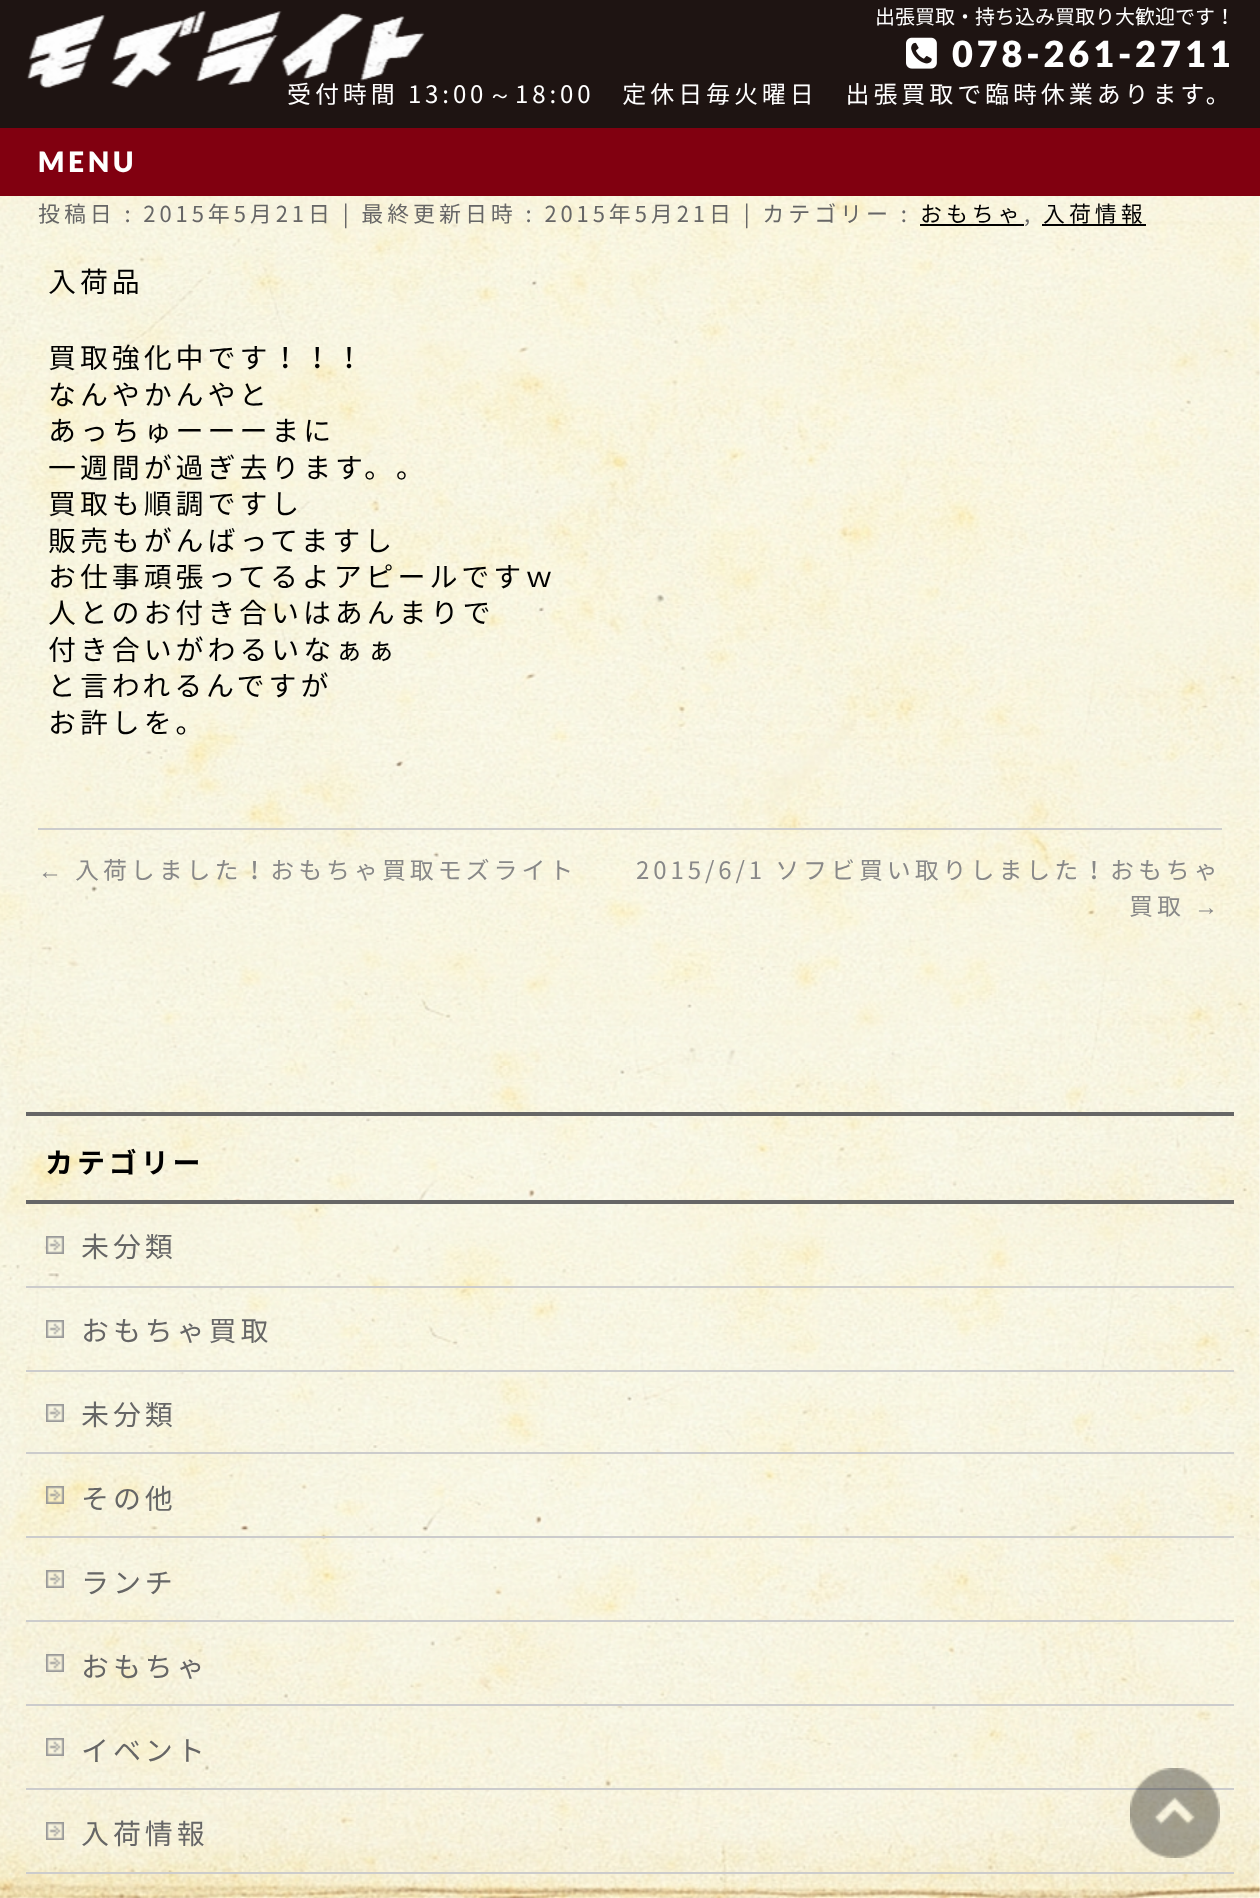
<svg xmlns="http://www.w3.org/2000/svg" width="1260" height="1898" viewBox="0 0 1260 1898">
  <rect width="100%" height="100%" fill="#fff"/>
  <image x="0" y="196" width="1260" height="1702" href="img/1.png"/>
  <path d="M0 0h1260v128H0z" fill="#1e1412"/>
  <image x="906" y="37" width="31" height="32" href="img/3.png"/>
  <path d="M0 128h1260v68H0z" fill="#810010"/>
  <path d="M920 224h104v2H920z" fill="#000"/>
  <path d="M1042 224h104v2H1042z" fill="#000"/>
  <path d="M38 828h1184v2H38z" fill="#ccc"/>
  <path d="M26 1112h1208v4H26z" fill="#666"/>
  <path d="M26 1200h1208v4H26z" fill="#666"/>
  <path d="M26 1286h1208v2H26z" fill="#ccc"/>
  <image x="46" y="1236" width="18" height="18" href="img/4.png"/>
  <path d="M26 1370h1208v2H26z" fill="#ccc"/>
  <image x="46" y="1320" width="18" height="18" href="img/5.png"/>
  <path d="M26 1452h1208v2H26z" fill="#ccc"/>
  <image x="46" y="1404" width="18" height="18" href="img/6.png"/>
  <path d="M26 1536h1208v2H26z" fill="#ccc"/>
  <image x="46" y="1486" width="18" height="18" href="img/7.png"/>
  <path d="M26 1620h1208v2H26z" fill="#ccc"/>
  <image x="46" y="1570" width="18" height="18" href="img/8.png"/>
  <path d="M26 1704h1208v2H26z" fill="#ccc"/>
  <image x="46" y="1654" width="18" height="18" href="img/9.png"/>
  <path d="M26 1788h1208v2H26z" fill="#ccc"/>
  <image x="46" y="1738" width="18" height="18" href="img/10.png"/>
  <path d="M26 1872h1208v2H26z" fill="#ccc"/>
  <image x="46" y="1822" width="18" height="18" href="img/11.png"/>
  <image x="1130" y="1768" width="90" height="90" href="img/12.png"/>
  <text x="875" y="24" font-family="Noto Sans JP" font-size="20" fill="#fff">出張買取・持ち込み買取り大歓迎です！</text>
  <text x="952" y="67" font-family="Lato" font-size="36" font-weight="900" letter-spacing="3.9" fill="#fff">078-261-2711</text>
  <text x="287" y="103" font-family="Noto Sans JP" font-size="24" letter-spacing="3.9" fill="#fff">受付時間 13:00</text>
  <image x="26" y="11" width="399" height="77" href="img/2.png"/>
  <text x="488" y="103" font-family="WenQuanYi Zen Hei" font-size="24" font-weight="500" letter-spacing="3.9" fill="#fff">～</text>
  <text x="515" y="103" font-family="Noto Sans JP" font-size="24" letter-spacing="3.9" fill="#fff">18:00　定休日毎火曜日　出張買取で臨時休業あります。</text>
  <text x="38" y="172" font-family="Lato" font-size="28" font-weight="900" letter-spacing="3.9" fill="#fff">MENU</text>
  <text x="38" y="222" font-family="Noto Sans JP" font-size="22" letter-spacing="3.9" fill="#666">投稿日 : 2015年5月21日 | 最終更新日時 : 2015年5月21日 | カテゴリー :</text>
  <text x="920" y="222" font-family="Noto Sans JP" font-size="22" letter-spacing="3.9" fill="#000">おもちゃ</text>
  <text x="1024" y="222" font-family="Noto Sans JP" font-size="22" letter-spacing="3.9" fill="#666">,</text>
  <text x="1043" y="222" font-family="Noto Sans JP" font-size="22" letter-spacing="3.9" fill="#000">入荷情報</text>
  <g font-family="Noto Sans JP" font-size="28" letter-spacing="3.9" fill="#000">
    <text x="48" y="292">入荷品</text>
    <text x="48" y="368">買取強化中です！！！</text>
    <text x="48" y="405">なんやかんやと</text>
    <text x="48" y="441">あっちゅーーーまに</text>
    <text x="48" y="478">一週間が過ぎ去ります。。</text>
    <text x="48" y="514">買取も順調ですし</text>
    <text x="48" y="551">販売もがんばってますし</text>
    <text x="48" y="587">お仕事頑張ってるよアピールですｗ</text>
    <text x="48" y="623">人とのお付き合いはあんまりで</text>
    <text x="48" y="660">付き合いがわるいなぁぁ</text>
    <text x="48" y="696">と言われるんですが</text>
    <text x="48" y="733">お許しを。</text>
  </g>
  <text x="38" y="879" font-family="Liberation Sans" font-size="24" letter-spacing="3.9" fill="#888">←</text>
  <g font-family="Noto Sans JP" font-size="24" letter-spacing="3.9" fill="#888">
    <text x="75" y="879">入荷しました！おもちゃ買取モズライト</text>
    <text x="636" y="879">2015/6/1 ソフビ買い取りしました！おもちゃ</text>
    <text x="1129" y="915">買取</text>
  </g>
  <text x="1194" y="915" font-family="Liberation Sans" font-size="24" letter-spacing="3.9" fill="#888">→</text>
  <text x="45" y="1173" font-family="Noto Sans JP" font-size="28" font-weight="bold" letter-spacing="3.9" fill="#000">カテゴリー</text>
  <g font-family="Noto Sans JP" font-size="28" letter-spacing="3.9" fill="#666">
    <text x="81" y="1257">未分類</text>
    <text x="81" y="1341">おもちゃ買取</text>
    <text x="81" y="1425">未分類</text>
    <text x="81" y="1509">その他</text>
    <text x="81" y="1593">ランチ</text>
    <text x="81" y="1677">おもちゃ</text>
    <text x="81" y="1761">イベント</text>
    <text x="81" y="1844">入荷情報</text>
  </g>
</svg>
